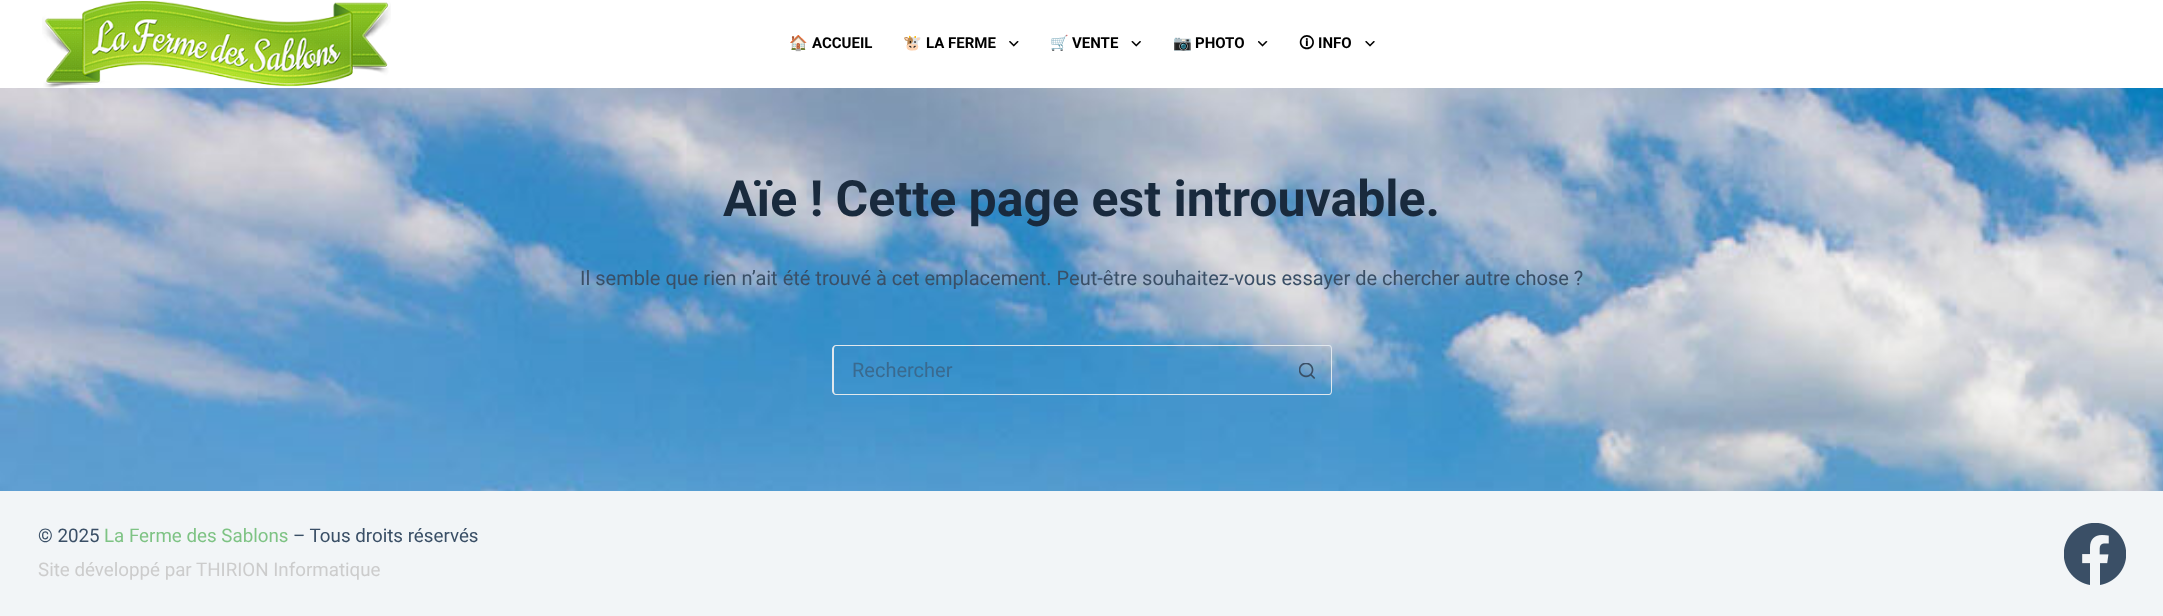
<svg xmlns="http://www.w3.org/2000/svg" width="2163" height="616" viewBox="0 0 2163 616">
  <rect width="100%" height="100%" fill="#fff"/>
  <image x="0" y="88" width="2163" height="403" href="img/1.png"/>
  <image x="42" y="1" width="349" height="87" href="img/2.png"/>
  <image x="1009" y="41" width="10" height="6" href="img/3.png"/>
  <image x="1131" y="41" width="10" height="6" href="img/4.png"/>
  <image x="1258" y="41" width="10" height="6" href="img/5.png"/>
  <image x="1365" y="41" width="10" height="6" href="img/6.png"/>
  <path d="M836 345H1282V395H836C834 395 832 393 832 391V349C832 347 834 345 836 345ZM836 346H1282V394H836C835 394 834 393 834 391V349C834 347 835 346 836 346Z" fill="#e1e8ed" fill-rule="evenodd"/>
  <path d="M1282 345H1329C1331 345 1332 347 1332 349V391C1332 393 1331 395 1329 395H1282ZM1282 346H1329C1330 346 1331 347 1331 349V391C1331 393 1330 394 1329 394H1282Z" fill="#e1e8ed" fill-rule="evenodd"/>
  <image x="1299" y="363" width="16" height="16" href="img/7.png"/>
  <path d="M0 491h2163v125H0z" fill="#f2f5f7"/>
  <image x="2064" y="523" width="62" height="62" href="img/8.png"/>
  <text x="789" y="48" font-family="Noto Color Emoji" font-size="15" font-weight="bold" fill="#000">🏠</text>
  <text x="812" y="48" font-family="Roboto" font-size="15" font-weight="bold" fill="#000">ACCUEIL</text>
  <text x="903" y="48" font-family="Noto Color Emoji" font-size="15" font-weight="bold" fill="#000">🐮</text>
  <text x="926" y="48" font-family="Roboto" font-size="15" font-weight="bold" fill="#000">LA FERME</text>
  <text x="1050" y="48" font-family="Noto Color Emoji" font-size="15" font-weight="bold" fill="#000">🛒</text>
  <text x="1072" y="48" font-family="Roboto" font-size="15" font-weight="bold" fill="#000">VENTE</text>
  <text x="1173" y="48" font-family="Noto Color Emoji" font-size="15" font-weight="bold" fill="#000">📷</text>
  <text x="1195" y="48" font-family="Roboto" font-size="15" font-weight="bold" fill="#000">PHOTO</text>
  <text x="1299" y="48" font-family="'Noto Sans Symbols 2'" font-size="15" font-weight="bold" fill="#000">🛈</text>
  <text x="1318" y="48" font-family="Roboto" font-size="15" font-weight="bold" fill="#000">INFO</text>
  <text x="723" y="216" font-family="Roboto" font-size="50" font-weight="bold" fill="#192a3d">Aïe ! Cette page est introuvable.</text>
  <text x="580" y="285" font-family="Roboto" font-size="20" fill="#3a4f66">Il semble que rien n’ait été trouvé à cet emplacement. Peut-être souhaitez-vous essayer de chercher autre chose ?</text>
  <text x="852" y="377" font-family="Roboto" font-size="20" fill="#3a6a8f">Rechercher</text>
  <text x="38" y="542" font-family="Roboto" font-size="18.75" fill="#3a4f66">© 2025</text>
  <text x="104" y="542" font-family="Roboto" font-size="18.75" fill="#7ec384">La Ferme des Sablons</text>
  <text x="293" y="542" font-family="Roboto" font-size="18.75" fill="#3a4f66">– Tous droits réservés</text>
  <text x="38" y="576" font-family="Roboto" font-size="18.75" fill="#ccc">Site développé par THIRION Informatique</text>
</svg>
